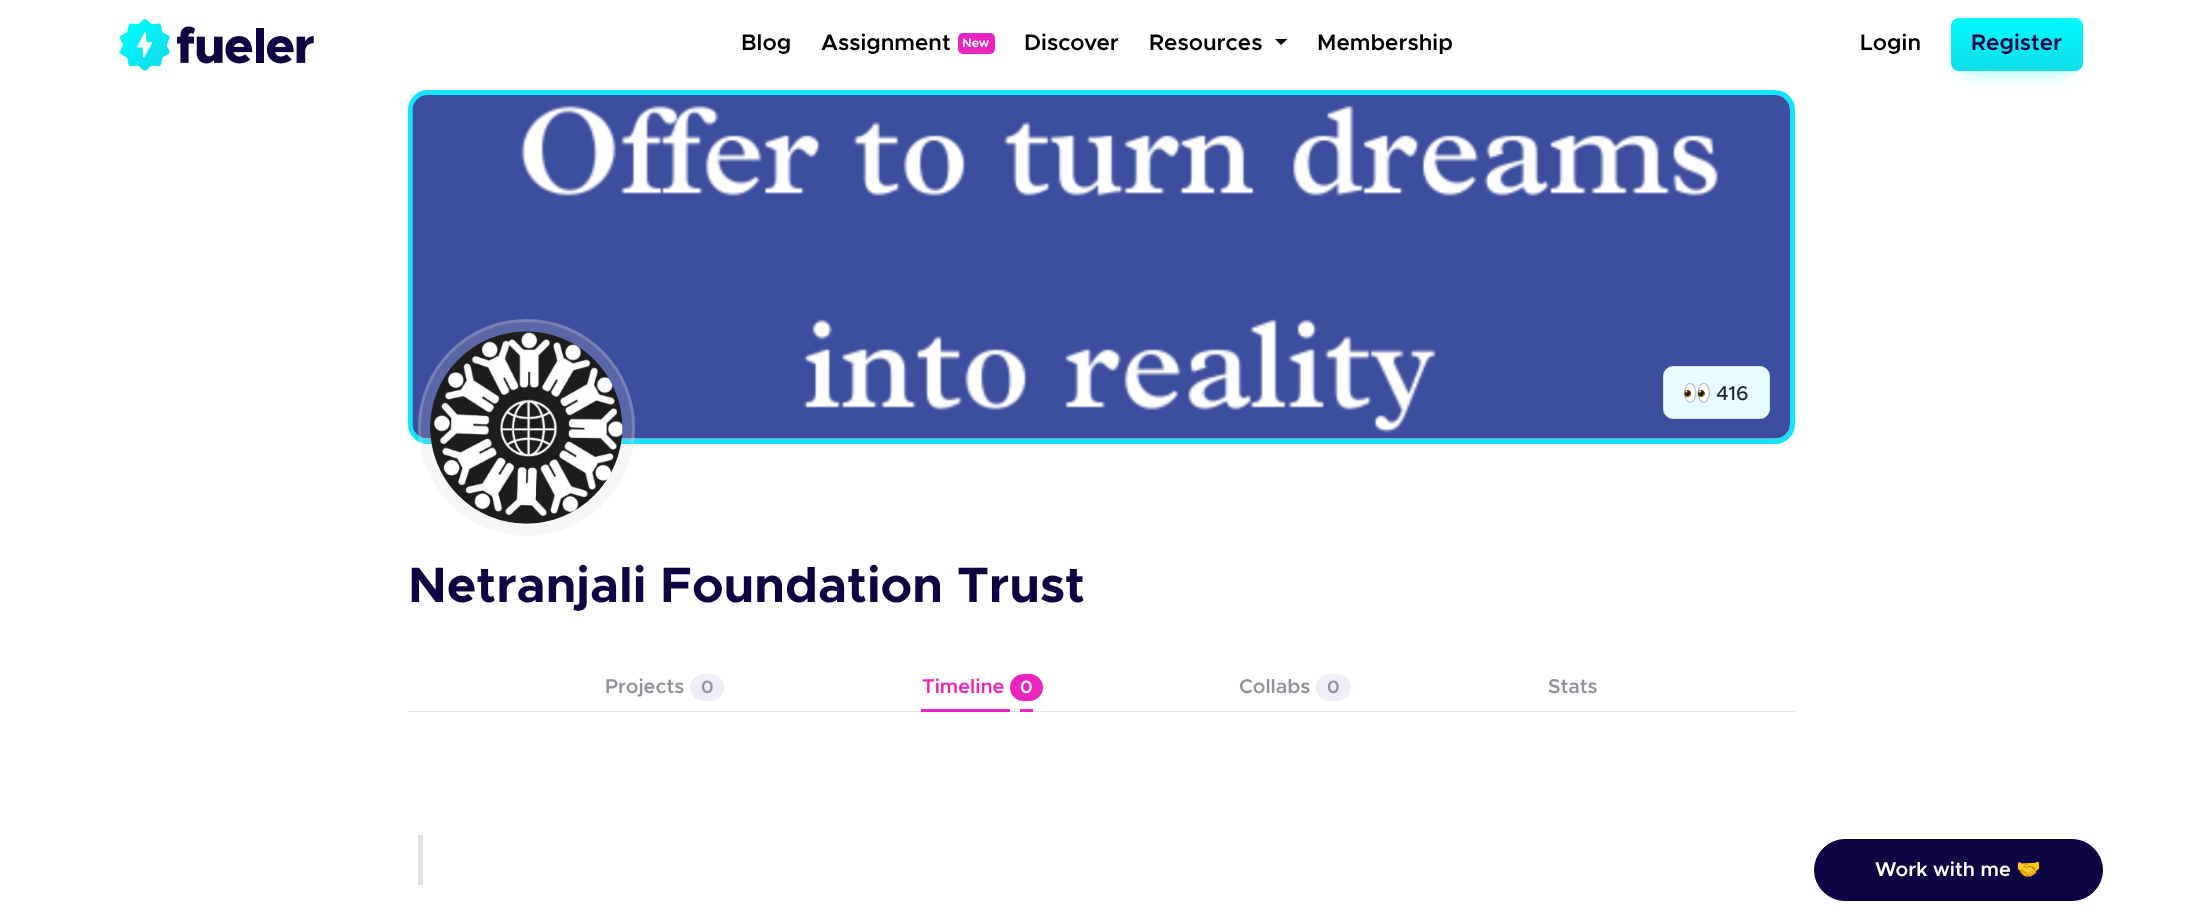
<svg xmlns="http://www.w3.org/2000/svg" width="2202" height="924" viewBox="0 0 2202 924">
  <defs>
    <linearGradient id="g1" gradientUnits="userSpaceOnUse" x1="2017" y1="17" x2="2017" y2="71"><stop offset="0" stop-color="#00fbff"/><stop offset="1" stop-color="#10dce8"/><stop offset="1" stop-color="#09c9e3"/></linearGradient>
  </defs>
  <rect width="100%" height="100%" fill="#fff"/>
  <image x="120" y="19" width="194" height="52" href="img/1.png"/>
  <rect x="958" y="33" width="37" height="21" rx="5" fill="#eb24bf"/>
  <path d="M1275 39H1287.5L1281 45Z" fill="#000"/>
  <path d="M1964 39h106v29H1964z" fill="#00fbff99" filter="blur(11px)"/>
  <rect x="1951" y="18" width="132" height="53" rx="8" fill="url(#g1)"/>
  <rect x="410.5" y="92.5" width="1382" height="349" rx="17.5" fill="none" stroke="#12e3ff" stroke-width="5"/>
  <image x="412" y="95" width="1378" height="344" href="img/3.png"/>
  <circle cx="526.5" cy="427.5" r="108.5" fill="#d1d1d130"/>
  <circle cx="526.5" cy="427.5" r="107" fill="none" stroke="#ffffff2e" stroke-width="3"/>
  <image x="430" y="331" width="193" height="193" href="img/2.png"/>
  <rect x="1663.5" y="366.5" width="106" height="52" rx="9.5" fill="#e7fcff" stroke="#dee2e6"/>
  <image x="1683" y="382" width="27" height="21" href="img/4.png"/>
  <path d="M408 711h1387v1H408z" fill="#dee2e6"/>
  <rect x="690" y="674" width="34" height="27" rx="13.5" fill="#efedf7"/>
  <path d="M921 709h89v3H921z" fill="#eb24bf"/>
  <path d="M1020 709h13v3H1020z" fill="#eb24bf"/>
  <rect x="1010" y="674" width="33" height="27" rx="13.5" fill="#eb24bf"/>
  <rect x="1316" y="674" width="35" height="27" rx="13.5" fill="#efedf7"/>
  <path d="M418 835h5v50H418z" fill="#e3e3e3"/>
  <rect x="1814.5" y="839.5" width="288" height="61" rx="30.5" fill="#0d0543" stroke="#0d0543"/>
  <g font-family="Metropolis" font-size="22.5" font-weight="600" fill="#000">
    <text x="741" y="50">Blog</text>
    <text x="821" y="50">Assignment</text>
  </g>
  <text x="962" y="47" font-family="Metropolis" font-size="12.5" font-weight="600" fill="#fff">New</text>
  <g font-family="Metropolis" font-size="22.5" font-weight="600" fill="#000">
    <text x="1024" y="50">Discover</text>
    <text x="1149" y="50">Resources</text>
    <text x="1317" y="50">Membership</text>
    <text x="1860" y="50">Login</text>
  </g>
  <text x="1971" y="50" font-family="Metropolis" font-size="22.5" font-weight="600" fill="#0d0543">Register</text>
  <text x="1716" y="400" font-family="Metropolis" font-size="20" font-weight="500" fill="#212529">416</text>
  <text x="408" y="602" font-family="Metropolis" font-size="50" font-weight="bold" fill="#0d0543">Netranjali Foundation Trust</text>
  <text x="605" y="693" font-family="Metropolis" font-size="20" font-weight="600" fill="#93919e">Projects</text>
  <text x="701" y="693" font-family="Metropolis" font-size="18" font-weight="600" fill="#93919e">0</text>
  <text x="922" y="693" font-family="Metropolis" font-size="20" font-weight="600" fill="#eb24bf">Timeline</text>
  <text x="1020" y="693" font-family="Metropolis" font-size="18" font-weight="600" fill="#fff">0</text>
  <text x="1239" y="693" font-family="Metropolis" font-size="20" font-weight="600" fill="#93919e">Collabs</text>
  <text x="1327" y="693" font-family="Metropolis" font-size="18" font-weight="600" fill="#93919e">0</text>
  <text x="1548" y="693" font-family="Metropolis" font-size="20" font-weight="600" fill="#93919e">Stats</text>
  <text x="1875" y="876" font-family="Metropolis" font-size="20" font-weight="600" fill="#fff">Work with me</text>
  <text x="2016" y="876" font-family="Noto Color Emoji" font-size="20" font-weight="bold" fill="#fff">🤝</text>
</svg>
